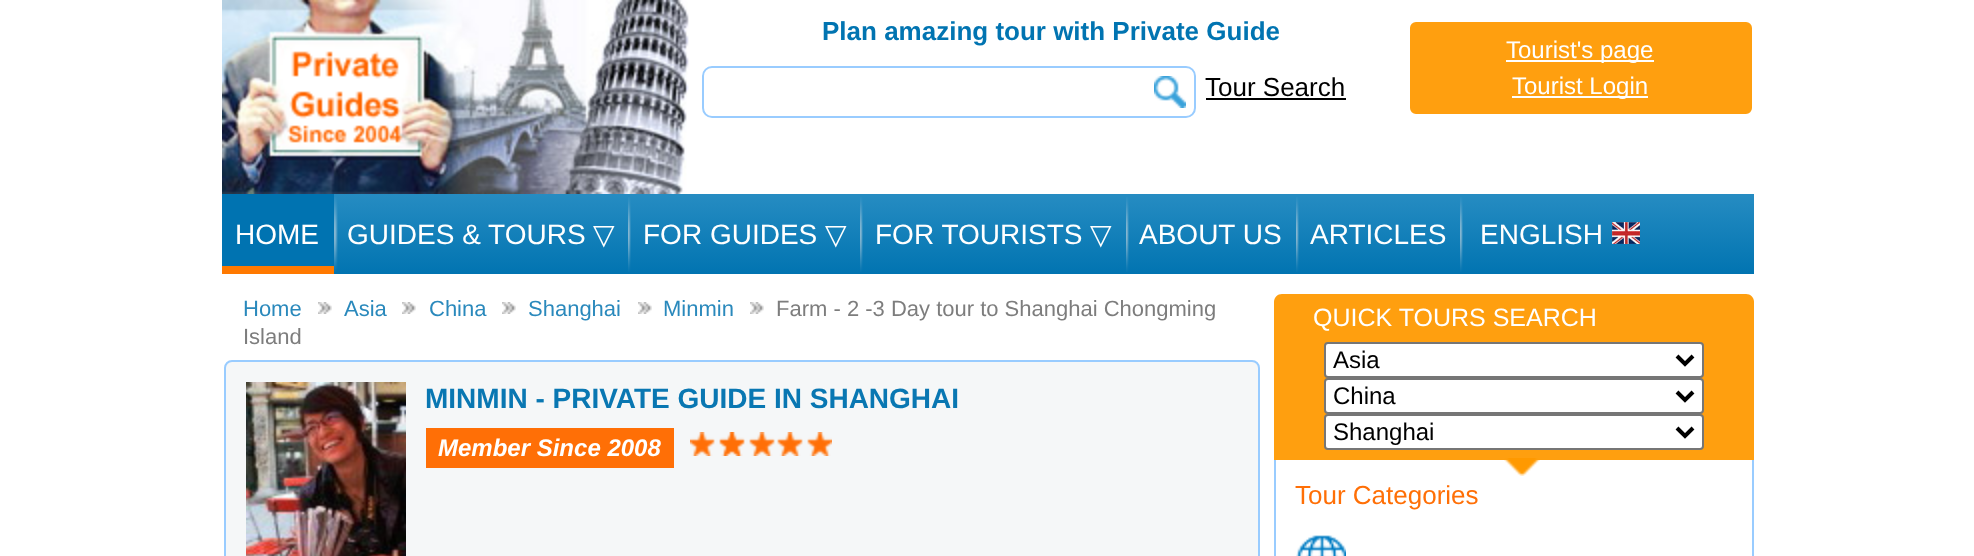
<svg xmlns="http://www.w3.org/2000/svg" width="1974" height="556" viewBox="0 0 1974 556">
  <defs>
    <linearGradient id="g1" gradientUnits="userSpaceOnUse" x1="988" y1="194" x2="988" y2="274"><stop offset="0" stop-color="#268cc2"/><stop offset="1" stop-color="#0174b1"/></linearGradient>
  </defs>
  <rect width="100%" height="100%" fill="#fff"/>
  <image x="222" y="0" width="467" height="194" href="img/1.png"/>
  <rect x="703" y="67" width="492" height="50" rx="9" fill="none" stroke="#9cf" stroke-width="2"/>
  <image x="1154" y="76" width="32" height="32" href="img/2.png"/>
  <path d="M1206 98h140v2H1206z" fill="#000"/>
  <rect x="1409" y="21" width="344" height="94" rx="7" fill="#ff9f0f" stroke="#fff" stroke-width="2"/>
  <path d="M1506 60h148v2H1506z" fill="#fff"/>
  <path d="M1512 96h136v2H1512z" fill="#fff"/>
  <path d="M334 194h1420v80H334z" fill="url(#g1)"/>
  <path d="M222 194h112v72H222z" fill="#0073b1"/>
  <path d="M222 266h112v8H222z" fill="#ff7900"/>
  <image x="334" y="197" width="4" height="75" href="img/3.png"/>
  <image x="628" y="197" width="3" height="75" href="img/4.png"/>
  <image x="860" y="197" width="3" height="75" href="img/4.png"/>
  <image x="1126" y="197" width="3" height="75" href="img/4.png"/>
  <image x="1296" y="197" width="3" height="75" href="img/4.png"/>
  <image x="1460" y="197" width="3" height="75" href="img/4.png"/>
  <image x="1612" y="222" width="28" height="22" href="img/5.png"/>
  <image x="318" y="302" width="14" height="12" href="img/6.png"/>
  <image x="402" y="302" width="14" height="12" href="img/6.png"/>
  <image x="502" y="302" width="14" height="12" href="img/6.png"/>
  <image x="638" y="302" width="14" height="12" href="img/6.png"/>
  <image x="750" y="302" width="14" height="12" href="img/6.png"/>
  <rect x="225" y="361" width="1034" height="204" rx="7" fill="#f5f7f8" stroke="#9cf" stroke-width="2"/>
  <image x="246" y="382" width="160" height="174" href="img/7.png"/>
  <path d="M426 428h248v40H426z" fill="#ff6f06"/>
  <image x="690" y="432" width="142" height="24" href="img/8.png"/>
  <path d="M1282 294H1746C1750.5 294 1754 297.5 1754 302V460H1274V302C1274 297.5 1277.5 294 1282 294Z" fill="#ff9f0f"/>
  <rect x="1325" y="343" width="378" height="34" rx="3" fill="#fff" stroke="#767676" stroke-width="2"/>
  <path d="M1677 356L1685 364L1693 356" fill="none" stroke="#000" stroke-width="4"/>
  <rect x="1325" y="379" width="378" height="34" rx="3" fill="#fff" stroke="#767676" stroke-width="2"/>
  <path d="M1677 392L1685 400L1693 392" fill="none" stroke="#000" stroke-width="4"/>
  <rect x="1325" y="415" width="378" height="34" rx="3" fill="#fff" stroke="#767676" stroke-width="2"/>
  <path d="M1677 428L1685 436L1693 428" fill="none" stroke="#000" stroke-width="4"/>
  <path d="M1752 460h2v96H1752z" fill="#9cf"/>
  <path d="M1274 460h2v96H1274z" fill="#9cf"/>
  <image x="1504" y="458" width="36" height="18" href="img/9.png"/>
  <image x="1296" y="535" width="50" height="21" href="img/10.png"/>
  <text x="822" y="40" font-family="Liberation Sans" font-size="26" font-weight="bold" fill="#0174b1">Plan amazing tour with Private Guide</text>
  <text x="1205" y="96" font-family="Liberation Sans" font-size="26" fill="#000">Tour Search</text>
  <g font-family="Liberation Sans" font-size="24" fill="#fff">
    <text x="1506" y="58">Tourist's page</text>
    <text x="1512" y="94">Tourist Login</text>
  </g>
  <g font-family="Liberation Sans" font-size="28" fill="#fff">
    <text x="235" y="244">HOME</text>
    <text x="347" y="244">GUIDES &amp; TOURS</text>
  </g>
  <text x="593" y="244" font-family="DejaVu Sans" font-size="28" fill="#fff">▽</text>
  <text x="643" y="244" font-family="Liberation Sans" font-size="28" fill="#fff">FOR GUIDES</text>
  <text x="825" y="244" font-family="DejaVu Sans" font-size="28" fill="#fff">▽</text>
  <text x="875" y="244" font-family="Liberation Sans" font-size="28" fill="#fff">FOR TOURISTS</text>
  <text x="1090" y="244" font-family="DejaVu Sans" font-size="28" fill="#fff">▽</text>
  <g font-family="Liberation Sans" font-size="28" fill="#fff">
    <text x="1139" y="244">ABOUT US</text>
    <text x="1310" y="244">ARTICLES</text>
    <text x="1480" y="244">ENGLISH</text>
  </g>
  <g font-family="Liberation Sans" font-size="22" fill="#2a89bc">
    <text x="243" y="316">Home</text>
    <text x="344" y="316">Asia</text>
    <text x="429" y="316">China</text>
    <text x="528" y="316">Shanghai</text>
    <text x="663" y="316">Minmin</text>
  </g>
  <g font-family="Liberation Sans" font-size="22" fill="#7d7d7d">
    <text x="776" y="316">Farm - 2 -3 Day tour to Shanghai Chongming</text>
    <text x="243" y="344">Island</text>
  </g>
  <text x="425" y="408" font-family="Liberation Sans" font-size="28" font-weight="bold" fill="#0977b2">MINMIN - PRIVATE GUIDE IN SHANGHAI</text>
  <text x="438" y="456" font-family="Liberation Sans" font-size="24" font-weight="bold" font-style="italic" fill="#fff">Member Since 2008</text>
  <text x="1313" y="326" font-family="Liberation Sans" font-size="25" fill="#fff">QUICK TOURS SEARCH</text>
  <g font-family="Liberation Sans" font-size="24" fill="#000">
    <text x="1333" y="368">Asia</text>
    <text x="1333" y="404">China</text>
    <text x="1333" y="440">Shanghai</text>
  </g>
  <text x="1295" y="504" font-family="Liberation Sans" font-size="26" fill="#ff6f06">Tour Categories</text>
</svg>
